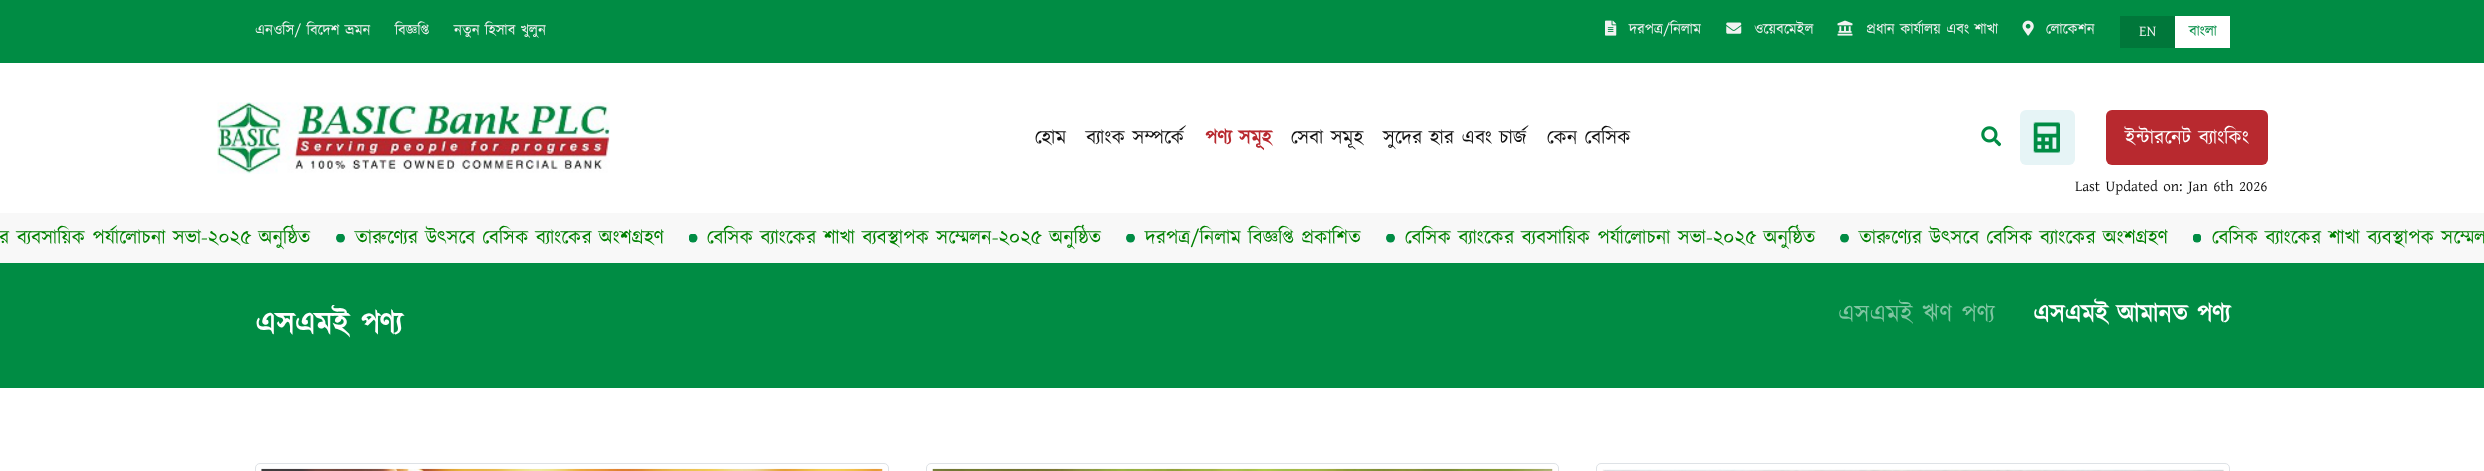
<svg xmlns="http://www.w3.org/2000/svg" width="2484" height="471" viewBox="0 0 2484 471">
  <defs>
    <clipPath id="clip1"><path d="M336 234h9v9H336z"/></clipPath>
    <clipPath id="clip2"><path d="M689 234h9v9H689z"/></clipPath>
    <clipPath id="clip3"><path d="M1126 234h9v9H1126z"/></clipPath>
    <clipPath id="clip4"><path d="M1386 234h9v9H1386z"/></clipPath>
    <clipPath id="clip5"><path d="M1840 234h9v9H1840z"/></clipPath>
    <clipPath id="clip6"><path d="M2193 234h8v9H2193z"/></clipPath>
  </defs>
  <rect width="100%" height="100%" fill="#fff"/>
  <path d="M0 0h2484v63H0z" fill="#008c44"/>
  <image x="1605" y="20" width="12" height="16" href="img/1.png"/>
  <image x="1726" y="22" width="16" height="12" href="img/2.png"/>
  <image x="1837" y="20" width="16" height="16" href="img/3.png"/>
  <image x="2022" y="20" width="12" height="16" href="img/4.png"/>
  <path d="M2120 16h55v32H2120z" fill="#00773a"/>
  <path d="M2175 16h55v32H2175z" fill="#fff"/>
  <image x="217" y="102" width="393" height="72" href="img/5.png"/>
  <image x="1981" y="126" width="20" height="21" href="img/6.png"/>
  <rect x="2020" y="110" width="55" height="55" rx="6" fill="#e6f4f6"/>
  <image x="2033" y="122" width="27" height="31" href="img/7.png"/>
  <rect x="2106" y="110" width="162" height="55" rx="6" fill="#b8292f"/>
  <path d="M0 213h2484v50H0z" fill="#f8f8f8"/>
  <g clip-path="url(#clip1)">
    <circle cx="340.5" cy="238" r="4.5" fill="#008c44"/>
  </g>
  <g clip-path="url(#clip2)">
    <circle cx="693" cy="238" r="4.5" fill="#008c44"/>
  </g>
  <g clip-path="url(#clip3)">
    <circle cx="1130.5" cy="238" r="4.5" fill="#008c44"/>
  </g>
  <g clip-path="url(#clip4)">
    <circle cx="1390.5" cy="238" r="4.5" fill="#008c44"/>
  </g>
  <g clip-path="url(#clip5)">
    <circle cx="1844.5" cy="238" r="4.5" fill="#008c44"/>
  </g>
  <g clip-path="url(#clip6)">
    <circle cx="2197" cy="238" r="4.5" fill="#008c44"/>
  </g>
  <path d="M0 263h2484v125H0z" fill="#008c44"/>
  <rect x="255.5" y="463.5" width="633" height="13" rx="4.5" fill="none" stroke="#dee2e6"/>
  <image x="261" y="468" width="622" height="3" href="img/8.png"/>
  <rect x="926.5" y="463.5" width="632" height="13" rx="4.5" fill="none" stroke="#dee2e6"/>
  <image x="932" y="468" width="621" height="3" href="img/9.png"/>
  <rect x="1596.5" y="463.5" width="633" height="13" rx="4.5" fill="none" stroke="#dee2e6"/>
  <image x="1602" y="469" width="622" height="2" href="img/10.png"/>
  <g font-family="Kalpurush" font-size="15" fill="#f2f2f2">
    <text x="255" y="35">এনওসি/ বিদেশ ভ্রমন</text>
    <text x="395" y="35">বিজ্ঞপ্তি</text>
    <text x="454" y="35">নতুন হিসাব খুলুন</text>
    <text x="1629" y="34">দরপত্র/নিলাম</text>
    <text x="1754" y="34">ওয়েবমেইল</text>
    <text x="1866" y="34">প্রধান কার্যালয় এবং শাখা</text>
    <text x="2046" y="34">লোকেশন</text>
    <text x="2139" y="36">EN</text>
  </g>
  <text x="2189" y="36" font-family="Kalpurush" font-size="15" fill="#008c44">বাংলা</text>
  <g font-family="Kalpurush" font-size="20" fill="#111">
    <text x="1035" y="144">হোম</text>
    <text x="1086" y="144">ব্যাংক সম্পর্কে</text>
  </g>
  <text x="1205" y="144" font-family="Kalpurush" font-size="20" font-weight="bold" fill="#b8292f">পণ্য সমূহ</text>
  <g font-family="Kalpurush" font-size="20" fill="#111">
    <text x="1291" y="144">সেবা সমূহ</text>
    <text x="1383" y="144">সুদের হার এবং চার্জ</text>
    <text x="1547" y="144">কেন বেসিক</text>
  </g>
  <text x="2125" y="144" font-family="Kalpurush" font-size="20" fill="#fff">ইন্টারনেট ব্যাংকিং</text>
  <text x="2075" y="191" font-family="Kalpurush" font-size="15" fill="#111">Last Updated on: Jan 6th 2026</text>
  <g font-family="Kalpurush" font-size="20" fill="#008000">
    <text x="-1" y="244">র ব্যবসায়িক পর্যালোচনা সভা-২০২৫ অনুষ্ঠিত</text>
    <text x="355" y="244">তারুণ্যের উৎসবে বেসিক ব্যাংকের অংশগ্রহণ</text>
    <text x="707" y="244">বেসিক ব্যাংকের শাখা ব্যবস্থাপক সম্মেলন-২০২৫ অনুষ্ঠিত</text>
    <text x="1145" y="244">দরপত্র/নিলাম বিজ্ঞপ্তি প্রকাশিত</text>
    <text x="1405" y="244">বেসিক ব্যাংকের ব্যবসায়িক পর্যালোচনা সভা-২০২৫ অনুষ্ঠিত</text>
    <text x="1859" y="244">তারুণ্যের উৎসবে বেসিক ব্যাংকের অংশগ্রহণ</text>
    <text x="2212" y="244">বেসিক ব্যাংকের শাখা ব্যবস্থাপক সম্মেল</text>
  </g>
  <text x="255" y="334" font-family="Kalpurush" font-size="31.25" font-weight="bold" fill="#fff">এসএমই পণ্য</text>
  <text x="1838" y="322" font-family="Kalpurush" font-size="25" fill="#80c6a2">এসএমই ঋণ পণ্য</text>
  <text x="2033" y="322" font-family="Kalpurush" font-size="25" font-weight="bold" fill="#fff">এসএমই আমানত পণ্য</text>
</svg>
